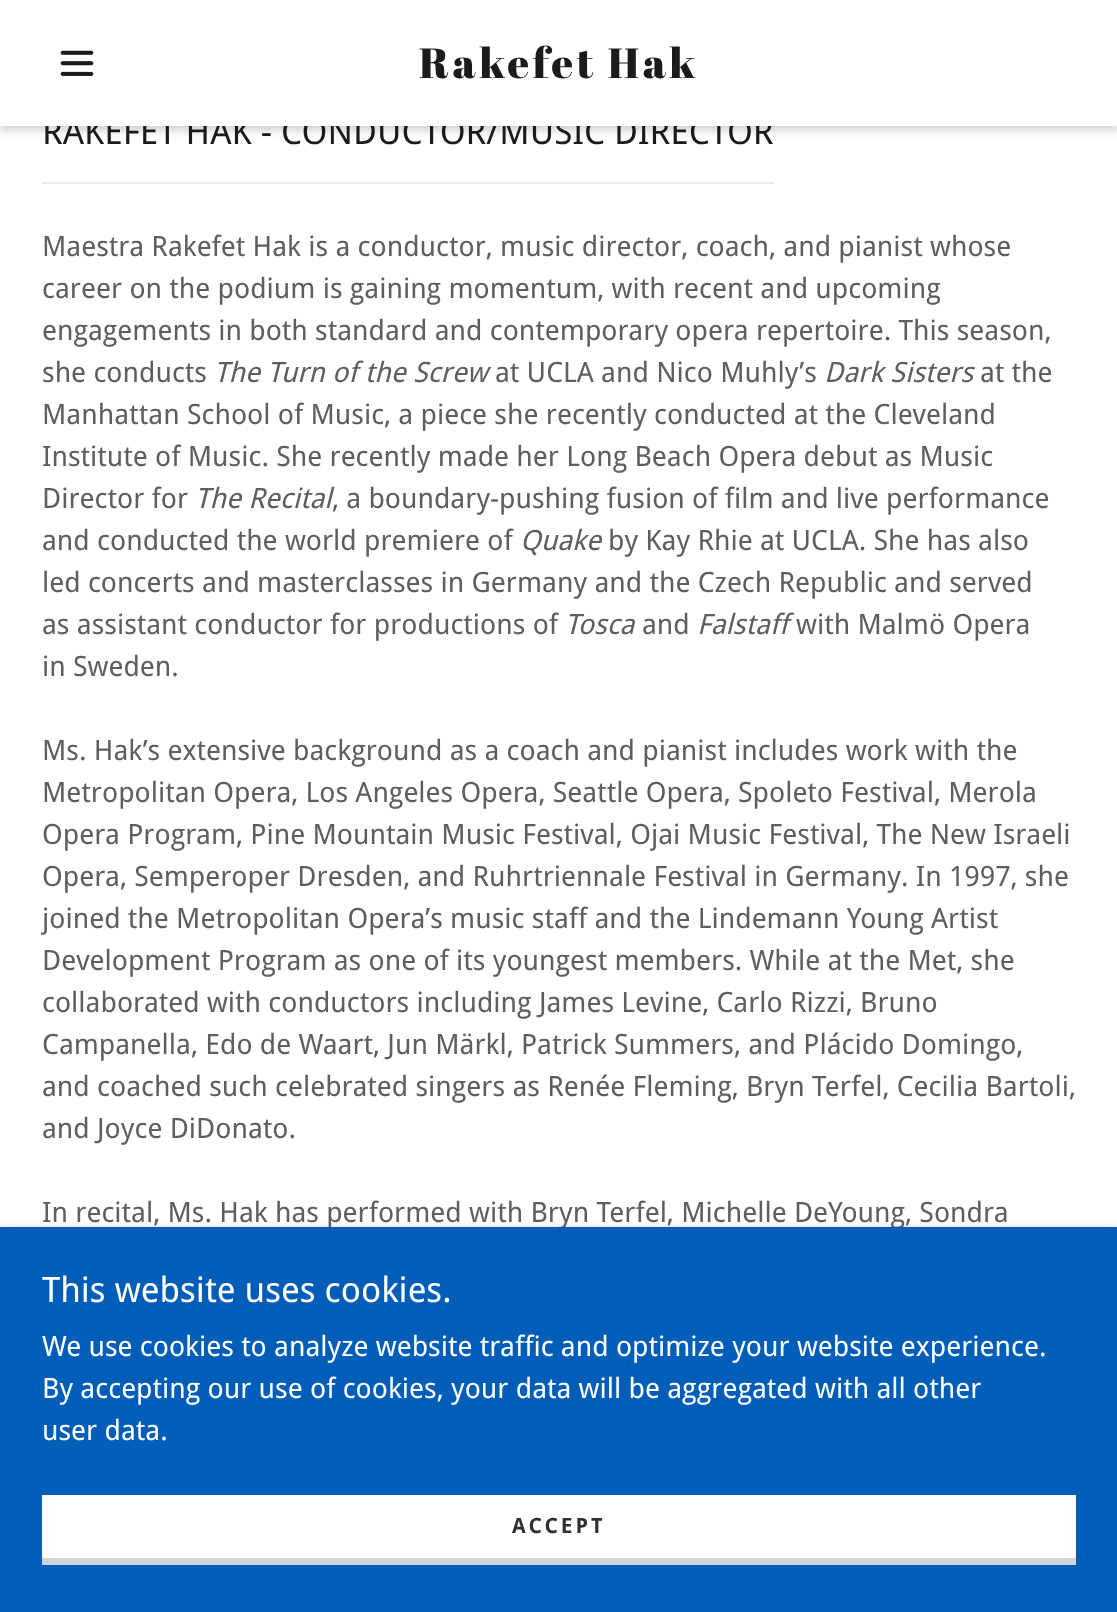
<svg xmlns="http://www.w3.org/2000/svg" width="1117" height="1612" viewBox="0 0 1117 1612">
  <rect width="100%" height="100%" fill="#fff"/>
  <path d="M0 4h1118v126H0z" fill="#00000033" filter="blur(5px)"/>
  <path d="M42 182h732v2H42z" fill="#ebebeb"/>
  <path d="M0 1230h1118v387H0z" fill="#0000004d" filter="blur(5px)"/>
  <text x="42" y="144" font-family="Droid Sans" font-size="35" fill="#1b1b1b">RAKEFET HAK - CONDUCTOR/MUSIC DIRECTOR</text>
  <path d="M0 0h1117v126H0z" fill="#fff"/>
  <text x="419" y="78" font-family="Abril Fatface" font-size="42" letter-spacing="3.5" fill="#1b1b1b">Rakefet Hak</text>
  <image x="60" y="50" width="34" height="26" href="img/1.png"/>
  <g font-family="Droid Sans" font-size="28" fill="#5e5e5e">
    <text x="42" y="256">Maestra Rakefet Hak is a conductor, music director, coach, and pianist whose</text>
    <text x="42" y="298">career on the podium is gaining momentum, with recent and upcoming</text>
    <text x="42" y="340">engagements in both standard and contemporary opera repertoire. This season,</text>
    <text x="42" y="382">she conducts</text>
  </g>
  <text x="214" y="382" font-family="Droid Sans" font-size="28" font-style="italic" fill="#5e5e5e">The Turn of the Screw</text>
  <text x="495" y="382" font-family="Droid Sans" font-size="28" fill="#5e5e5e">at UCLA and Nico Muhly’s</text>
  <text x="824" y="382" font-family="Droid Sans" font-size="28" font-style="italic" fill="#5e5e5e">Dark Sisters</text>
  <g font-family="Droid Sans" font-size="28" fill="#5e5e5e">
    <text x="980" y="382">at the</text>
    <text x="42" y="424">Manhattan School of Music, a piece she recently conducted at the Cleveland</text>
    <text x="42" y="466">Institute of Music. She recently made her Long Beach Opera debut as Music</text>
    <text x="42" y="508">Director for</text>
  </g>
  <text x="195" y="508" font-family="Droid Sans" font-size="28" font-style="italic" fill="#5e5e5e">The Recital</text>
  <g font-family="Droid Sans" font-size="28" fill="#5e5e5e">
    <text x="332" y="508">, a boundary-pushing fusion of film and live performance</text>
    <text x="42" y="550">and conducted the world premiere of</text>
  </g>
  <text x="520" y="550" font-family="Droid Sans" font-size="28" font-style="italic" fill="#5e5e5e">Quake</text>
  <g font-family="Droid Sans" font-size="28" fill="#5e5e5e">
    <text x="608" y="550">by Kay Rhie at UCLA. She has also</text>
    <text x="42" y="592">led concerts and masterclasses in Germany and the Czech Republic and served</text>
    <text x="42" y="634">as assistant conductor for productions of</text>
  </g>
  <text x="565" y="634" font-family="Droid Sans" font-size="28" font-style="italic" fill="#5e5e5e">Tosca</text>
  <text x="642" y="634" font-family="Droid Sans" font-size="28" fill="#5e5e5e">and</text>
  <text x="697" y="634" font-family="Droid Sans" font-size="28" font-style="italic" fill="#5e5e5e">Falstaff</text>
  <g font-family="Droid Sans" font-size="28" fill="#5e5e5e">
    <text x="796" y="634">with Malmö Opera</text>
    <text x="42" y="676">in Sweden.</text>
    <text x="42" y="760">Ms. Hak’s extensive background as a coach and pianist includes work with the</text>
    <text x="42" y="802">Metropolitan Opera, Los Angeles Opera, Seattle Opera, Spoleto Festival, Merola</text>
    <text x="42" y="844">Opera Program, Pine Mountain Music Festival, Ojai Music Festival, The New Israeli</text>
    <text x="42" y="886">Opera, Semperoper Dresden, and Ruhrtriennale Festival in Germany. In 1997, she</text>
    <text x="42" y="928">joined the Metropolitan Opera’s music staff and the Lindemann Young Artist</text>
    <text x="42" y="970">Development Program as one of its youngest members. While at the Met, she</text>
    <text x="42" y="1012">collaborated with conductors including James Levine, Carlo Rizzi, Bruno</text>
    <text x="42" y="1054">Campanella, Edo de Waart, Jun Märkl, Patrick Summers, and Plácido Domingo,</text>
    <text x="42" y="1096">and coached such celebrated singers as Renée Fleming, Bryn Terfel, Cecilia Bartoli,</text>
    <text x="42" y="1138">and Joyce DiDonato.</text>
    <text x="42" y="1222">In recital, Ms. Hak has performed with Bryn Terfel, Michelle DeYoung, Sondra</text>
  </g>
  <path d="M0 1227h1117v385H0z" fill="#005eb8"/>
  <text x="42" y="1302" font-family="Droid Sans" font-size="35" fill="#fff">This website uses cookies.</text>
  <g font-family="Droid Sans" font-size="28" fill="#fff">
    <text x="42" y="1356">We use cookies to analyze website traffic and optimize your website experience.</text>
    <text x="42" y="1398">By accepting our use of cookies, your data will be aggregated with all other</text>
    <text x="42" y="1440">user data.</text>
  </g>
  <path d="M42 1495h1034v63H42z" fill="#fff"/>
  <path d="M42 1558h1034v7H42z" fill="#d4d4d4"/>
  <text x="512" y="1533" font-family="Droid Sans" font-size="21" font-weight="bold" letter-spacing="3" fill="#303030">ACCEPT</text>
</svg>
